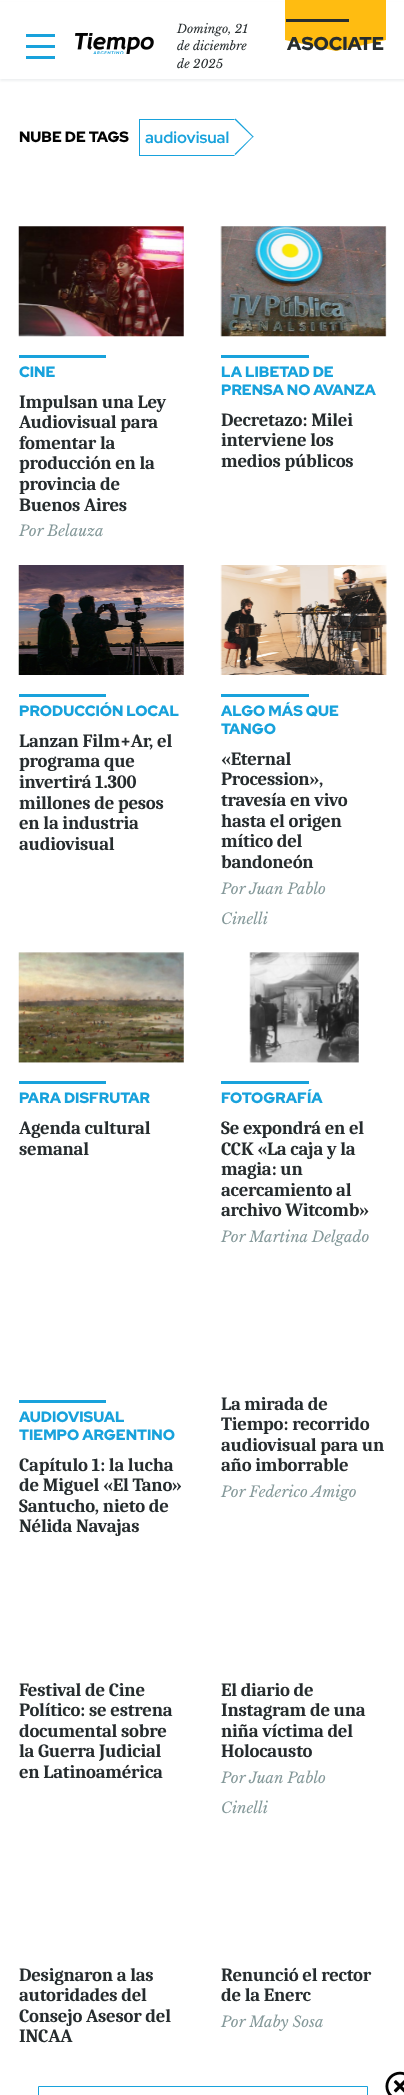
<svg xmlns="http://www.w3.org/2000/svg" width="404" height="2095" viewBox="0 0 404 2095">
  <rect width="100%" height="100%" fill="#fff"/>
  <path d="M0 3h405v78H0z" fill="#eef0f1" filter="blur(1px)"/>
  <path d="M0 2h404v77H0z" fill="#fff"/>
  <path d="M26 34h29v3H26z" fill="#18a2dc"/>
  <path d="M26 45h29v3H26z" fill="#18a2dc"/>
  <path d="M26 56h29v3H26z" fill="#18a2dc"/>
  <image x="75" y="33" width="79" height="21" href="img/1.png"/>
  <path d="M285 40V0H386V40L336 51Z" fill="#ffbc11"/>
  <path d="M286 19h63v3H286z" fill="#272d2f"/>
  <path d="M235.5 118.5L253.5 136.5L253 137.5L234.5 119.5Z" fill="#18a2dc"/>
  <path d="M139 119H235L234 120H140Z" fill="#18a2dc"/>
  <path d="M235 156H139L140 155H234Z" fill="#18a2dc"/>
  <path d="M139 119h1v37H139z" fill="#18a2dc"/>
  <path d="M253 136L253.5 136.5L235.5 155L234.5 154Z" fill="#18a2dc"/>
  <image x="18" y="226" width="166" height="111" href="img/2.png"/>
  <path d="M19 355h87v3H19z" fill="#18a2dc"/>
  <image x="220" y="226" width="167" height="111" href="img/3.png"/>
  <path d="M221 355h88v3H221z" fill="#18a2dc"/>
  <image x="18" y="565" width="166" height="110" href="img/4.png"/>
  <path d="M19 694h87v3H19z" fill="#18a2dc"/>
  <image x="220" y="565" width="167" height="110" href="img/5.png"/>
  <path d="M221 694h88v3H221z" fill="#18a2dc"/>
  <image x="18" y="952" width="166" height="111" href="img/6.png"/>
  <path d="M19 1081h87v3H19z" fill="#18a2dc"/>
  <image x="249" y="952" width="110" height="111" href="img/7.png"/>
  <path d="M221 1081h88v3H221z" fill="#18a2dc"/>
  <path d="M19 1400h87v3H19z" fill="#18a2dc"/>
  <path d="M38.5 2086.5h329v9H38.5z" fill="none" stroke="#18a2dc"/>
  <image x="385" y="2071" width="19" height="24" href="img/8.png"/>
  <g font-family="Libre Baskerville" font-size="12" font-style="italic" fill="#272d2f">
    <text x="177" y="33">Domingo, 21</text>
    <text x="177" y="50">de diciembre</text>
    <text x="177" y="68">de 2025</text>
  </g>
  <text x="287" y="50" font-family="Red Hat Display" font-size="18.75" font-weight="900" fill="#272d2f">ASOCIATE</text>
  <text x="19" y="142" font-family="Red Hat Display" font-size="15" font-weight="900" fill="#030303">NUBE DE TAGS</text>
  <text x="145" y="143" font-family="Red Hat Display" font-size="16.25" font-weight="bold" fill="#18a2dc">audiovisual</text>
  <text x="19" y="377" font-family="Red Hat Display" font-size="15" font-weight="900" fill="#18a2dc">CINE</text>
  <g font-family="Caladea" font-size="18.75" font-weight="bold" letter-spacing="-0.25" fill="#272d2f">
    <text x="19" y="408">Impulsan una Ley</text>
    <text x="19" y="428">Audiovisual para</text>
    <text x="19" y="449">fomentar la</text>
    <text x="19" y="469">producción en la</text>
    <text x="19" y="490">provincia de</text>
    <text x="19" y="511">Buenos Aires</text>
  </g>
  <text x="19" y="536" font-family="Libre Baskerville" font-size="15" font-style="italic" fill="#85999a">Por Belauza</text>
  <g font-family="Red Hat Display" font-size="15" font-weight="900" fill="#18a2dc">
    <text x="221" y="377">LA LIBETAD DE</text>
    <text x="221" y="395">PRENSA NO AVANZA</text>
  </g>
  <g font-family="Caladea" font-size="18.75" font-weight="bold" letter-spacing="-0.25" fill="#272d2f">
    <text x="221" y="426">Decretazo: Milei</text>
    <text x="221" y="446">interviene los</text>
    <text x="221" y="467">medios públicos</text>
  </g>
  <text x="19" y="716" font-family="Red Hat Display" font-size="15" font-weight="900" fill="#18a2dc">PRODUCCIÓN LOCAL</text>
  <g font-family="Caladea" font-size="18.75" font-weight="bold" letter-spacing="-0.25" fill="#272d2f">
    <text x="19" y="747">Lanzan Film+Ar, el</text>
    <text x="19" y="767">programa que</text>
    <text x="19" y="788">invertirá 1.300</text>
    <text x="19" y="809">millones de pesos</text>
    <text x="19" y="829">en la industria</text>
    <text x="19" y="850">audiovisual</text>
  </g>
  <g font-family="Red Hat Display" font-size="15" font-weight="900" fill="#18a2dc">
    <text x="221" y="716">ALGO MÁS QUE</text>
    <text x="221" y="734">TANGO</text>
  </g>
  <g font-family="Caladea" font-size="18.75" font-weight="bold" letter-spacing="-0.25" fill="#272d2f">
    <text x="221" y="765">«Eternal</text>
    <text x="221" y="785">Procession»,</text>
    <text x="221" y="806">travesía en vivo</text>
    <text x="221" y="827">hasta el origen</text>
    <text x="221" y="847">mítico del</text>
    <text x="221" y="868">bandoneón</text>
  </g>
  <g font-family="Libre Baskerville" font-size="15" font-style="italic" fill="#85999a">
    <text x="221" y="894">Por</text>
    <text x="249" y="894">Juan Pablo</text>
    <text x="221" y="924">Cinelli</text>
  </g>
  <text x="19" y="1103" font-family="Red Hat Display" font-size="15" font-weight="900" fill="#18a2dc">PARA DISFRUTAR</text>
  <g font-family="Caladea" font-size="18.75" font-weight="bold" letter-spacing="-0.25" fill="#272d2f">
    <text x="19" y="1134">Agenda cultural</text>
    <text x="19" y="1155">semanal</text>
  </g>
  <text x="221" y="1103" font-family="Red Hat Display" font-size="15" font-weight="900" fill="#18a2dc">FOTOGRAFÍA</text>
  <g font-family="Caladea" font-size="18.75" font-weight="bold" letter-spacing="-0.25" fill="#272d2f">
    <text x="221" y="1134">Se expondrá en el</text>
    <text x="221" y="1155">CCK «La caja y la</text>
    <text x="221" y="1175">magia: un</text>
    <text x="221" y="1196">acercamiento al</text>
    <text x="221" y="1216">archivo Witcomb»</text>
  </g>
  <text x="221" y="1242" font-family="Libre Baskerville" font-size="15" font-style="italic" fill="#85999a">Por Martina Delgado</text>
  <g font-family="Red Hat Display" font-size="15" font-weight="900" fill="#18a2dc">
    <text x="19" y="1422">AUDIOVISUAL</text>
    <text x="19" y="1440">TIEMPO ARGENTINO</text>
  </g>
  <g font-family="Caladea" font-size="18.75" font-weight="bold" letter-spacing="-0.25" fill="#272d2f">
    <text x="19" y="1471">Capítulo 1: la lucha</text>
    <text x="19" y="1491">de Miguel «El Tano»</text>
    <text x="19" y="1512">Santucho, nieto de</text>
    <text x="19" y="1532">Nélida Navajas</text>
    <text x="221" y="1410">La mirada de</text>
    <text x="221" y="1430">Tiempo: recorrido</text>
    <text x="221" y="1451">audiovisual para un</text>
    <text x="221" y="1471">año imborrable</text>
  </g>
  <text x="221" y="1497" font-family="Libre Baskerville" font-size="15" font-style="italic" fill="#85999a">Por Federico Amigo</text>
  <g font-family="Caladea" font-size="18.75" font-weight="bold" letter-spacing="-0.25" fill="#272d2f">
    <text x="19" y="1696">Festival de Cine</text>
    <text x="19" y="1716">Político: se estrena</text>
    <text x="19" y="1737">documental sobre</text>
    <text x="19" y="1757">la Guerra Judicial</text>
    <text x="19" y="1778">en Latinoamérica</text>
    <text x="221" y="1696">El diario de</text>
    <text x="221" y="1716">Instagram de una</text>
    <text x="221" y="1737">niña víctima del</text>
    <text x="221" y="1757">Holocausto</text>
  </g>
  <g font-family="Libre Baskerville" font-size="15" font-style="italic" fill="#85999a">
    <text x="221" y="1783">Por</text>
    <text x="249" y="1783">Juan Pablo</text>
    <text x="221" y="1813">Cinelli</text>
  </g>
  <g font-family="Caladea" font-size="18.75" font-weight="bold" letter-spacing="-0.25" fill="#272d2f">
    <text x="19" y="1981">Designaron a las</text>
    <text x="19" y="2001">autoridades del</text>
    <text x="19" y="2022">Consejo Asesor del</text>
    <text x="19" y="2042">INCAA</text>
    <text x="221" y="1981">Renunció el rector</text>
    <text x="221" y="2001">de la Enerc</text>
  </g>
  <text x="221" y="2027" font-family="Libre Baskerville" font-size="15" font-style="italic" fill="#85999a">Por Maby Sosa</text>
</svg>
